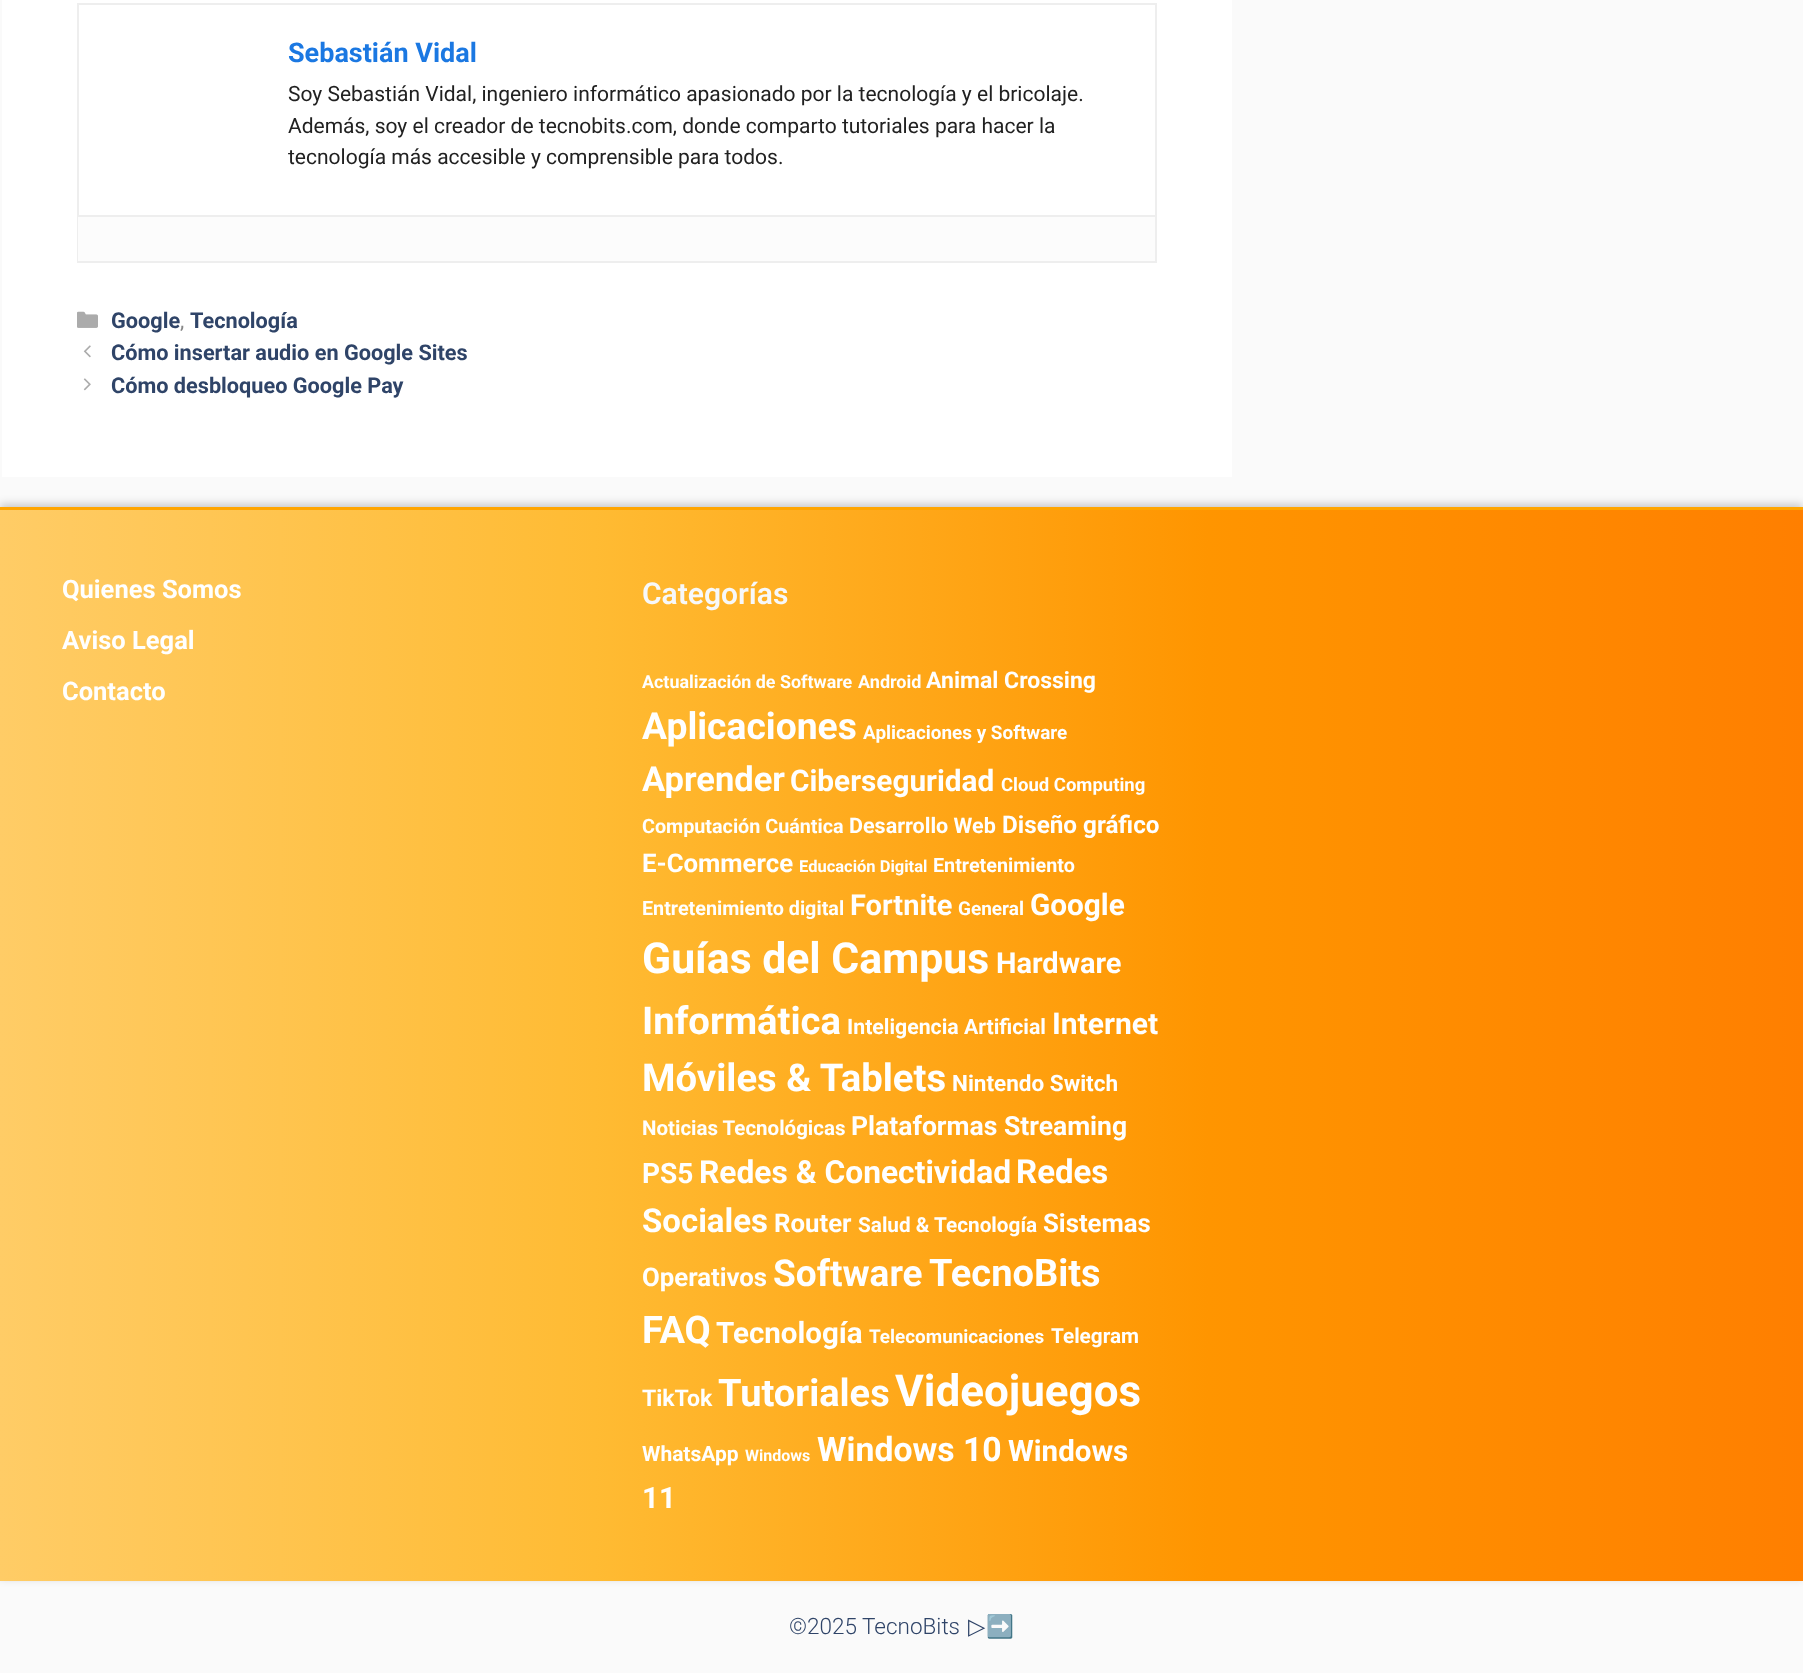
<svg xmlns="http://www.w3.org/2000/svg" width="1803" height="1673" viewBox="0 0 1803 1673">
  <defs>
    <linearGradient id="g1" gradientUnits="userSpaceOnUse" x1="1803" y1="1046" x2="0" y2="1046"><stop offset="0" stop-color="#ff7f00"/><stop offset="0.33" stop-color="#ff9500"/><stop offset="0.67" stop-color="#fb3"/><stop offset="1" stop-color="#fc6"/></linearGradient>
  </defs>
  <rect width="100%" height="100%" fill="#fafafa"/>
  <path d="M2 0h1230v477H2z" fill="#fff"/>
  <path d="M78 4h1078v258H78z" fill="none" stroke="#eee" stroke-width="2"/>
  <path d="M78 217h1077v44H78z" fill="#fcfcfc"/>
  <path d="M78 215h1077v2H78z" fill="#eee"/>
  <image x="77" y="311" width="21" height="17" href="img/1.png"/>
  <image x="83" y="345" width="8" height="13" href="img/2.png"/>
  <image x="83" y="378" width="8" height="13" href="img/3.png"/>
  <path d="M0 504h1803v1074H0z" fill="#00000033" filter="blur(4px)"/>
  <path d="M0 510h1803v1071H0z" fill="url(#g1)"/>
  <path d="M0 507h1803v3H0z" fill="#ffa500"/>
  <text x="288" y="62" font-family="Roboto" font-size="27" font-weight="bold" fill="#1b78e2">Sebastián Vidal</text>
  <g font-family="Roboto" font-size="21" fill="#212121">
    <text x="288" y="101">Soy Sebastián Vidal, ingeniero informático apasionado por la tecnología y el bricolaje.</text>
    <text x="288" y="133">Además, soy el creador de tecnobits.com, donde comparto tutoriales para hacer la</text>
    <text x="288" y="164">tecnología más accesible y comprensible para todos.</text>
  </g>
  <text x="111" y="328" font-family="Roboto" font-size="21.7" font-weight="bold" fill="#2f4468">Google</text>
  <text x="180" y="328" font-family="Roboto" font-size="21.7" fill="#878787">,</text>
  <g font-family="Roboto" font-size="21.7" font-weight="bold" fill="#2f4468">
    <text x="190" y="328">Tecnología</text>
    <text x="111" y="360">Cómo insertar audio en Google Sites</text>
    <text x="111" y="393">Cómo desbloqueo Google Pay</text>
  </g>
  <g font-family="Roboto" font-size="25.5" font-weight="bold" fill="#fff">
    <text x="62" y="598">Quienes Somos</text>
    <text x="62" y="649">Aviso Legal</text>
    <text x="62" y="700">Contacto</text>
  </g>
  <text x="642" y="604" font-family="Roboto" font-size="30" font-weight="600" fill="#f7f8f9">Categorías</text>
  <text x="642" y="688" font-family="Roboto" font-size="17.9" font-weight="bold" fill="#fff">Actualización de Software</text>
  <text x="858" y="688" font-family="Roboto" font-size="18" font-weight="bold" fill="#fff">Android</text>
  <text x="926" y="688" font-family="Roboto" font-size="23" font-weight="bold" fill="#fff">Animal Crossing</text>
  <text x="642" y="739" font-family="Roboto" font-size="37.25" font-weight="bold" fill="#fff">Aplicaciones</text>
  <text x="863" y="739" font-family="Roboto" font-size="18.9" font-weight="bold" fill="#fff">Aplicaciones y Software</text>
  <text x="642" y="791" font-family="Roboto" font-size="34.5" font-weight="bold" fill="#fff">Aprender</text>
  <text x="790" y="791" font-family="Roboto" font-size="29.75" font-weight="bold" fill="#fff">Ciberseguridad</text>
  <text x="1001" y="791" font-family="Roboto" font-size="18.5" font-weight="bold" fill="#fff">Cloud Computing</text>
  <text x="642" y="833" font-family="Roboto" font-size="19.75" font-weight="bold" fill="#fff">Computación Cuántica</text>
  <text x="849" y="833" font-family="Roboto" font-size="21.5" font-weight="bold" fill="#fff">Desarrollo Web</text>
  <text x="1002" y="833" font-family="Roboto" font-size="24.25" font-weight="bold" fill="#fff">Diseño gráfico</text>
  <text x="642" y="872" font-family="Roboto" font-size="25.75" font-weight="bold" fill="#fff">E-Commerce</text>
  <text x="799" y="872" font-family="Roboto" font-size="16.5" font-weight="bold" fill="#fff">Educación Digital</text>
  <g font-family="Roboto" font-size="19.75" font-weight="bold" fill="#fff">
    <text x="933" y="872">Entretenimiento</text>
    <text x="642" y="915">Entretenimiento digital</text>
  </g>
  <text x="850" y="915" font-family="Roboto" font-size="29" font-weight="bold" fill="#fff">Fortnite</text>
  <text x="958" y="915" font-family="Roboto" font-size="19" font-weight="bold" fill="#fff">General</text>
  <text x="1030" y="915" font-family="Roboto" font-size="29.75" font-weight="bold" fill="#fff">Google</text>
  <text x="642" y="973" font-family="Roboto" font-size="42.75" font-weight="bold" fill="#fff">Guías del Campus</text>
  <text x="996" y="973" font-family="Roboto" font-size="29" font-weight="bold" fill="#fff">Hardware</text>
  <text x="642" y="1034" font-family="Roboto" font-size="38.25" font-weight="bold" fill="#fff">Informática</text>
  <text x="847" y="1034" font-family="Roboto" font-size="21.25" font-weight="bold" fill="#fff">Inteligencia Artificial</text>
  <text x="1052" y="1034" font-family="Roboto" font-size="30" font-weight="bold" fill="#fff">Internet</text>
  <text x="642" y="1091" font-family="Roboto" font-size="38.25" font-weight="bold" fill="#fff">Móviles &amp; Tablets</text>
  <text x="952" y="1091" font-family="Roboto" font-size="22.5" font-weight="bold" fill="#fff">Nintendo Switch</text>
  <text x="642" y="1135" font-family="Roboto" font-size="20.5" font-weight="bold" fill="#fff">Noticias Tecnológicas</text>
  <text x="851" y="1135" font-family="Roboto" font-size="26.5" font-weight="bold" fill="#fff">Plataformas Streaming</text>
  <text x="642" y="1183" font-family="Roboto" font-size="28" font-weight="bold" fill="#fff">PS5</text>
  <text x="699" y="1183" font-family="Roboto" font-size="31.75" font-weight="bold" fill="#fff">Redes &amp; Conectividad</text>
  <g font-family="Roboto" font-size="33" font-weight="bold" fill="#fff">
    <text x="1016" y="1183">Redes</text>
    <text x="642" y="1232">Sociales</text>
  </g>
  <text x="774" y="1232" font-family="Roboto" font-size="25.75" font-weight="bold" fill="#fff">Router</text>
  <text x="858" y="1232" font-family="Roboto" font-size="20.75" font-weight="bold" fill="#fff">Salud &amp; Tecnología</text>
  <g font-family="Roboto" font-size="25.75" font-weight="bold" fill="#fff">
    <text x="1043" y="1232">Sistemas</text>
    <text x="642" y="1286">Operativos</text>
  </g>
  <text x="773" y="1286" font-family="Roboto" font-size="37" font-weight="bold" fill="#fff">Software</text>
  <g font-family="Roboto" font-size="38" font-weight="bold" fill="#fff">
    <text x="929" y="1286">TecnoBits</text>
    <text x="642" y="1343">FAQ</text>
  </g>
  <text x="716" y="1343" font-family="Roboto" font-size="29.5" font-weight="bold" fill="#fff">Tecnología</text>
  <text x="869" y="1343" font-family="Roboto" font-size="18.9" font-weight="bold" fill="#fff">Telecomunicaciones</text>
  <text x="1051" y="1343" font-family="Roboto" font-size="20.75" font-weight="bold" fill="#fff">Telegram</text>
  <text x="642" y="1406" font-family="Roboto" font-size="23" font-weight="bold" fill="#fff">TikTok</text>
  <text x="718" y="1406" font-family="Roboto" font-size="38" font-weight="bold" fill="#fff">Tutoriales</text>
  <text x="895" y="1406" font-family="Roboto" font-size="44" font-weight="bold" fill="#fff">Videojuegos</text>
  <text x="642" y="1461" font-family="Roboto" font-size="21" font-weight="bold" fill="#fff">WhatsApp</text>
  <text x="745" y="1461" font-family="Roboto" font-size="16" font-weight="bold" fill="#fff">Windows</text>
  <text x="817" y="1461" font-family="Roboto" font-size="33.75" font-weight="bold" fill="#fff">Windows 10</text>
  <g font-family="Roboto" font-size="29.5" font-weight="bold" fill="#fff">
    <text x="1008" y="1461">Windows</text>
    <text x="642" y="1508">11</text>
  </g>
  <text x="789" y="1634" font-family="Roboto" font-size="22.5" font-weight="300" fill="#2f4468">©2025 TecnoBits</text>
  <text x="968" y="1634" font-family="DejaVu Sans" font-size="22.5" fill="#2f4468">▷</text>
  <text x="986" y="1634" font-family="Noto Color Emoji" font-size="22.5" fill="#2f4468">➡️</text>
</svg>
